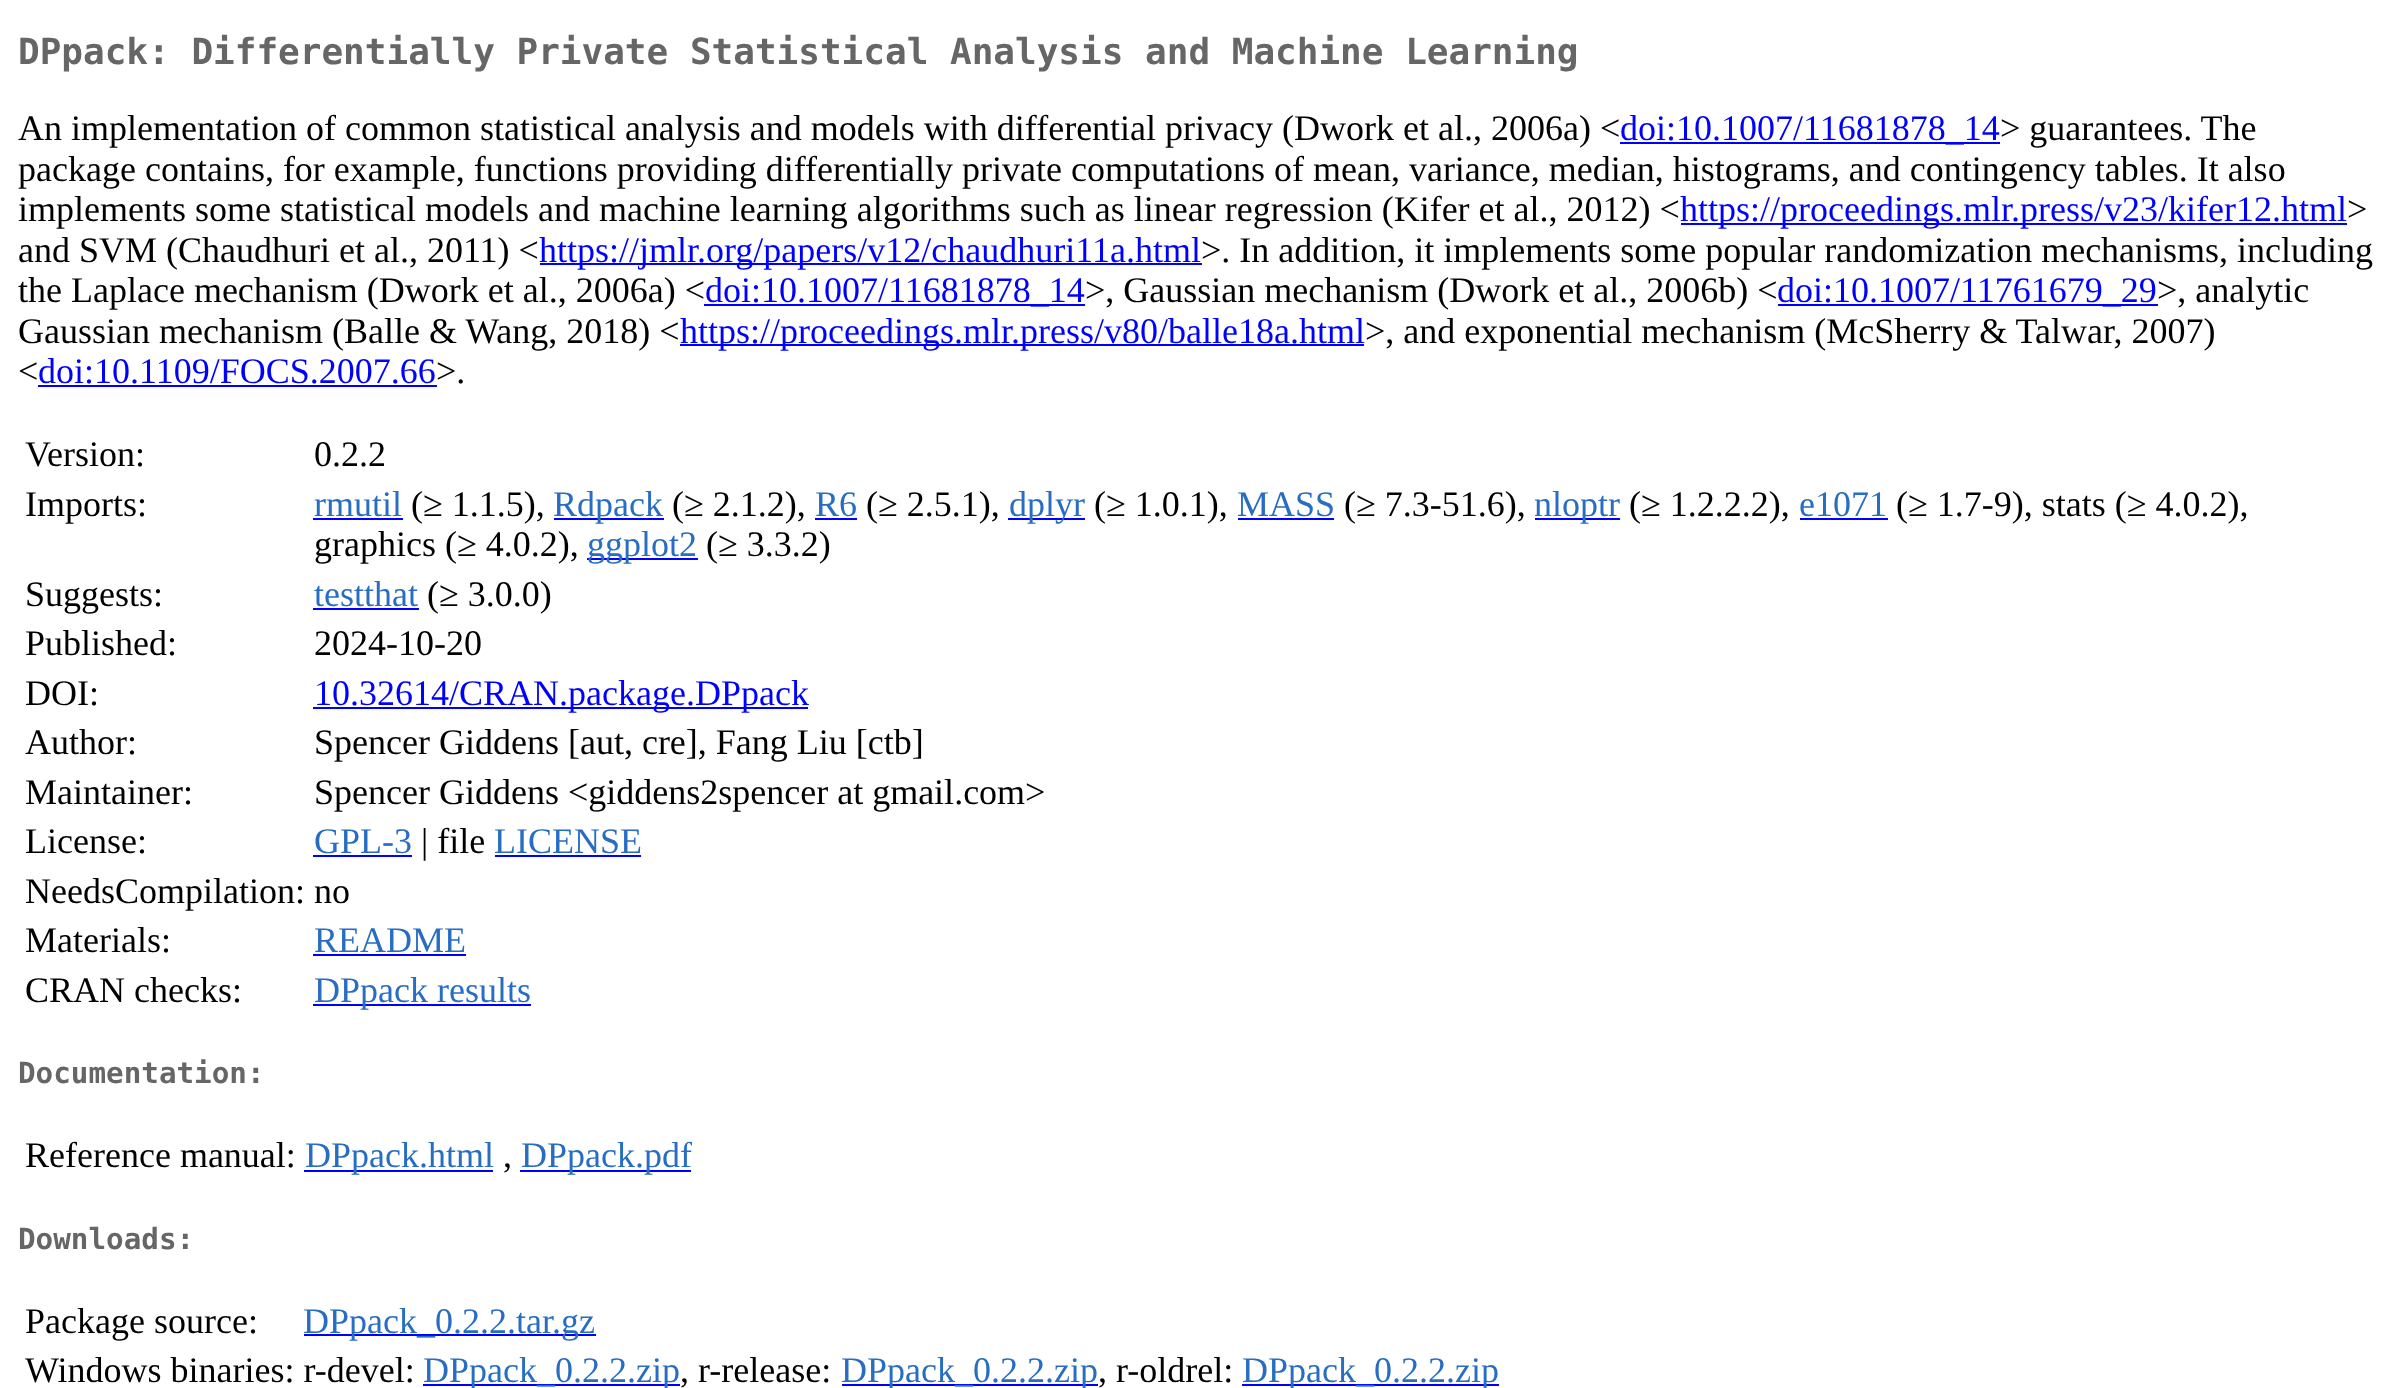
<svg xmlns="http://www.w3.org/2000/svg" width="2398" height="1388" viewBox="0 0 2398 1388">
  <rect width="100%" height="100%" fill="#fff"/>
  <path d="M1620 142h380v2H1620z" fill="#00f"/>
  <path d="M1681 223h666v2H1681z" fill="#00f"/>
  <path d="M540 263h662v2H540z" fill="#00f"/>
  <path d="M704 304h381v2H704z" fill="#00f"/>
  <path d="M1778 304h380v2H1778z" fill="#00f"/>
  <path d="M680 344h684v2H680z" fill="#00f"/>
  <path d="M38 385h399v2H38z" fill="#00f"/>
  <path d="M313 518h90v2H313z" fill="#00f"/>
  <path d="M554 518h110v2H554z" fill="#00f"/>
  <path d="M815 518h42v2H815z" fill="#00f"/>
  <path d="M1008 518h77v2H1008z" fill="#00f"/>
  <path d="M1238 518h96v2H1238z" fill="#00f"/>
  <path d="M1535 518h85v2H1535z" fill="#00f"/>
  <path d="M1800 518h88v2H1800z" fill="#00f"/>
  <path d="M587 558h111v2H587z" fill="#00f"/>
  <path d="M313 608h106v2H313z" fill="#00f"/>
  <path d="M313 707h495v2H313z" fill="#00f"/>
  <path d="M313 855h99v2H313z" fill="#00f"/>
  <path d="M495 855h146v2H495z" fill="#00f"/>
  <path d="M313 954h153v2H313z" fill="#00f"/>
  <path d="M313 1004h218v2H313z" fill="#00f"/>
  <path d="M304 1170h189v2H304z" fill="#00f"/>
  <path d="M520 1170h171v2H520z" fill="#00f"/>
  <path d="M304 1334h292v2H304z" fill="#00f"/>
  <path d="M423 1384h257v2H423z" fill="#00f"/>
  <path d="M842 1384h256v2H842z" fill="#00f"/>
  <path d="M1242 1384h257v2H1242z" fill="#00f"/>
  <text x="18" y="64" font-family="DejaVu Sans Mono" font-size="36" font-weight="bold" fill="#666">DPpack: Differentially Private Statistical Analysis and Machine Learning</text>
  <text x="18" y="140" font-family="Liberation Serif" font-size="36" fill="#000">An implementation of common statistical analysis and models with differential privacy (Dwork et al., 2006a) &lt;</text>
  <text x="1620" y="140" font-family="Liberation Serif" font-size="36" fill="#00f">doi:10.1007/11681878_14</text>
  <g font-family="Liberation Serif" font-size="36" fill="#000">
    <text x="2000" y="140">&gt; guarantees. The</text>
    <text x="18" y="181">package contains, for example, functions providing differentially private computations of mean, variance, median, histograms, and contingency tables. It also</text>
    <text x="18" y="221">implements some statistical models and machine learning algorithms such as linear regression (Kifer et al., 2012) &lt;</text>
  </g>
  <text x="1680" y="221" font-family="Liberation Serif" font-size="36" fill="#00f">https://proceedings.mlr.press/v23/kifer12.html</text>
  <g font-family="Liberation Serif" font-size="36" fill="#000">
    <text x="2347" y="221">&gt;</text>
    <text x="18" y="262">and SVM (Chaudhuri et al., 2011) &lt;</text>
  </g>
  <text x="539" y="262" font-family="Liberation Serif" font-size="36" fill="#00f">https://jmlr.org/papers/v12/chaudhuri11a.html</text>
  <g font-family="Liberation Serif" font-size="36" fill="#000">
    <text x="1201" y="262">&gt;. In addition, it implements some popular randomization mechanisms, including</text>
    <text x="18" y="302">the Laplace mechanism (Dwork et al., 2006a) &lt;</text>
  </g>
  <text x="705" y="302" font-family="Liberation Serif" font-size="36" fill="#00f">doi:10.1007/11681878_14</text>
  <text x="1085" y="302" font-family="Liberation Serif" font-size="36" fill="#000">&gt;, Gaussian mechanism (Dwork et al., 2006b) &lt;</text>
  <text x="1777" y="302" font-family="Liberation Serif" font-size="36" fill="#00f">doi:10.1007/11761679_29</text>
  <g font-family="Liberation Serif" font-size="36" fill="#000">
    <text x="2157" y="302">&gt;, analytic</text>
    <text x="18" y="343">Gaussian mechanism (Balle &amp; Wang, 2018) &lt;</text>
  </g>
  <text x="680" y="343" font-family="Liberation Serif" font-size="36" fill="#00f">https://proceedings.mlr.press/v80/balle18a.html</text>
  <g font-family="Liberation Serif" font-size="36" fill="#000">
    <text x="1365" y="343">&gt;, and exponential mechanism (McSherry &amp; Talwar, 2007)</text>
    <text x="18" y="383">&lt;</text>
  </g>
  <text x="38" y="383" font-family="Liberation Serif" font-size="36" fill="#00f">doi:10.1109/FOCS.2007.66</text>
  <g font-family="Liberation Serif" font-size="36" fill="#000">
    <text x="436" y="383">&gt;.</text>
    <text x="25" y="466">Version:</text>
    <text x="314" y="466">0.2.2</text>
    <text x="25" y="516">Imports:</text>
  </g>
  <text x="314" y="516" font-family="Liberation Serif" font-size="36" fill="#276dc3">rmutil</text>
  <text x="411" y="516" font-family="Liberation Serif" font-size="36" fill="#000">(≥ 1.1.5),</text>
  <text x="553" y="516" font-family="Liberation Serif" font-size="36" fill="#276dc3">Rdpack</text>
  <text x="672" y="516" font-family="Liberation Serif" font-size="36" fill="#000">(≥ 2.1.2),</text>
  <text x="815" y="516" font-family="Liberation Serif" font-size="36" fill="#276dc3">R6</text>
  <text x="866" y="516" font-family="Liberation Serif" font-size="36" fill="#000">(≥ 2.5.1),</text>
  <text x="1009" y="516" font-family="Liberation Serif" font-size="36" fill="#276dc3">dplyr</text>
  <text x="1094" y="516" font-family="Liberation Serif" font-size="36" fill="#000">(≥ 1.0.1),</text>
  <text x="1237" y="516" font-family="Liberation Serif" font-size="36" fill="#276dc3">MASS</text>
  <text x="1344" y="516" font-family="Liberation Serif" font-size="36" fill="#000">(≥ 7.3-51.6),</text>
  <text x="1534" y="516" font-family="Liberation Serif" font-size="36" fill="#276dc3">nloptr</text>
  <text x="1629" y="516" font-family="Liberation Serif" font-size="36" fill="#000">(≥ 1.2.2.2),</text>
  <text x="1799" y="516" font-family="Liberation Serif" font-size="36" fill="#276dc3">e1071</text>
  <g font-family="Liberation Serif" font-size="36" fill="#000">
    <text x="1896" y="516">(≥ 1.7-9), stats (≥ 4.0.2),</text>
    <text x="314" y="556">graphics (≥ 4.0.2),</text>
  </g>
  <text x="587" y="556" font-family="Liberation Serif" font-size="36" fill="#276dc3">ggplot2</text>
  <g font-family="Liberation Serif" font-size="36" fill="#000">
    <text x="706" y="556">(≥ 3.3.2)</text>
    <text x="25" y="606">Suggests:</text>
  </g>
  <text x="314" y="606" font-family="Liberation Serif" font-size="36" fill="#276dc3">testthat</text>
  <g font-family="Liberation Serif" font-size="36" fill="#000">
    <text x="427" y="606">(≥ 3.0.0)</text>
    <text x="25" y="655">Published:</text>
    <text x="314" y="655">2024-10-20</text>
    <text x="25" y="705">DOI:</text>
  </g>
  <text x="314" y="705" font-family="Liberation Serif" font-size="36" fill="#00f">10.32614/CRAN.package.DPpack</text>
  <g font-family="Liberation Serif" font-size="36" fill="#000">
    <text x="25" y="754">Author:</text>
    <text x="314" y="754">Spencer Giddens [aut, cre], Fang Liu [ctb]</text>
    <text x="25" y="804">Maintainer:</text>
    <text x="314" y="804">Spencer Giddens &lt;giddens2spencer at gmail.com&gt;</text>
    <text x="25" y="853">License:</text>
  </g>
  <text x="314" y="853" font-family="Liberation Serif" font-size="36" fill="#276dc3">GPL-3</text>
  <text x="421" y="853" font-family="Liberation Serif" font-size="36" fill="#000">| file</text>
  <text x="494" y="853" font-family="Liberation Serif" font-size="36" fill="#276dc3">LICENSE</text>
  <g font-family="Liberation Serif" font-size="36" fill="#000">
    <text x="25" y="903">NeedsCompilation: no</text>
    <text x="25" y="952">Materials:</text>
  </g>
  <text x="314" y="952" font-family="Liberation Serif" font-size="36" fill="#276dc3">README</text>
  <text x="25" y="1002" font-family="Liberation Serif" font-size="36" fill="#000">CRAN checks:</text>
  <text x="314" y="1002" font-family="Liberation Serif" font-size="36" fill="#276dc3">DPpack results</text>
  <text x="18" y="1083" font-family="DejaVu Sans Mono" font-size="29.25" font-weight="bold" fill="#666">Documentation:</text>
  <text x="25" y="1167" font-family="Liberation Serif" font-size="36" fill="#000">Reference manual:</text>
  <text x="305" y="1167" font-family="Liberation Serif" font-size="36" fill="#276dc3">DPpack.html</text>
  <text x="503" y="1167" font-family="Liberation Serif" font-size="36" fill="#000">,</text>
  <text x="521" y="1167" font-family="Liberation Serif" font-size="36" fill="#276dc3">DPpack.pdf</text>
  <text x="18" y="1249" font-family="DejaVu Sans Mono" font-size="29.25" font-weight="bold" fill="#666">Downloads:</text>
  <text x="25" y="1333" font-family="Liberation Serif" font-size="36" fill="#000">Package source:</text>
  <text x="303" y="1333" font-family="Liberation Serif" font-size="36" fill="#276dc3">DPpack_0.2.2.tar.gz</text>
  <text x="25" y="1382" font-family="Liberation Serif" font-size="36" fill="#000">Windows binaries: r-devel:</text>
  <text x="423" y="1382" font-family="Liberation Serif" font-size="36" fill="#276dc3">DPpack_0.2.2.zip</text>
  <text x="680" y="1382" font-family="Liberation Serif" font-size="36" fill="#000">, r-release:</text>
  <text x="841" y="1382" font-family="Liberation Serif" font-size="36" fill="#276dc3">DPpack_0.2.2.zip</text>
  <text x="1098" y="1382" font-family="Liberation Serif" font-size="36" fill="#000">, r-oldrel:</text>
  <text x="1242" y="1382" font-family="Liberation Serif" font-size="36" fill="#276dc3">DPpack_0.2.2.zip</text>
</svg>
